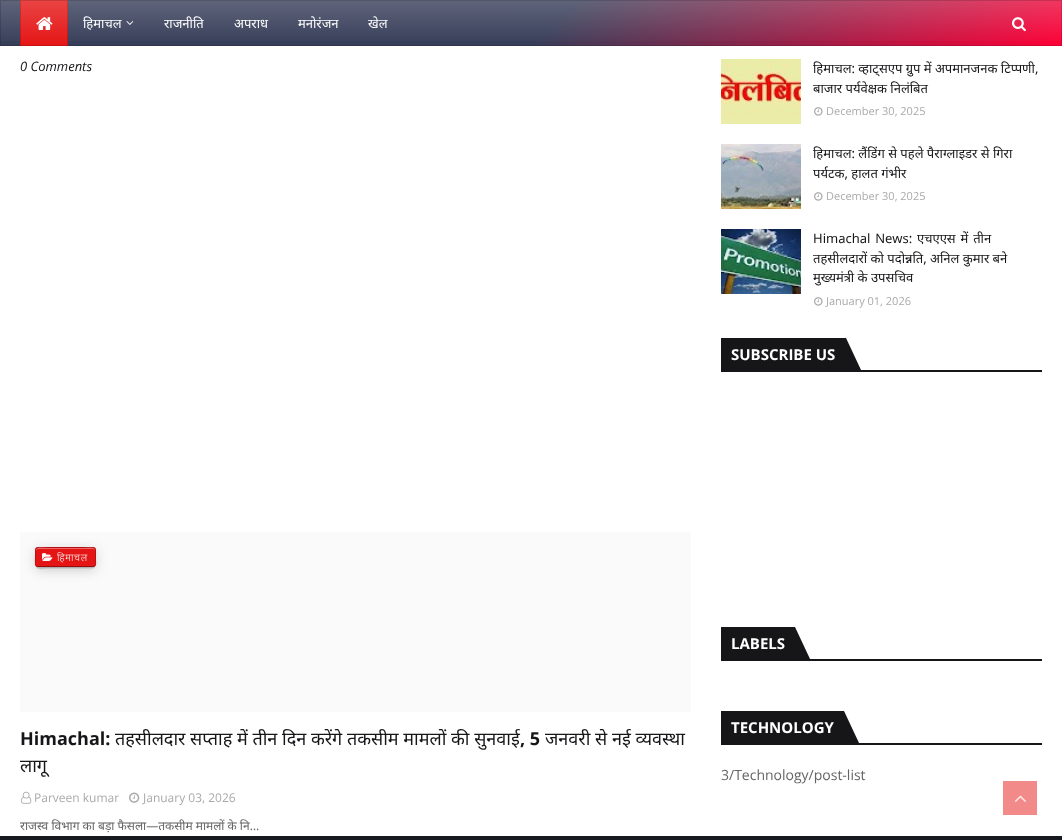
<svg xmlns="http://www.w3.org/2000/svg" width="1062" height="840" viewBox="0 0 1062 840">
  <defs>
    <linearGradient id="g1" gradientUnits="userSpaceOnUse" x1="254" y1="-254" x2="808" y2="300"><stop offset="0.52" stop-color="#373e59"/><stop offset="1" stop-color="#ff0036"/></linearGradient>
    <linearGradient id="g2" gradientUnits="userSpaceOnUse" x1="531" y1="0" x2="531" y2="46"><stop offset="0" stop-color="#fff" stop-opacity="0.2"/><stop offset="1" stop-color="#fff" stop-opacity="0"/></linearGradient>
    <linearGradient id="g3" gradientUnits="userSpaceOnUse" x1="44" y1="0" x2="44" y2="46"><stop offset="0" stop-color="#ea4444"/><stop offset="1" stop-color="#e51515"/></linearGradient>
    <clipPath id="clip1"><path d="M813 229h229v79H813z"/></clipPath>
  </defs>
  <rect width="100%" height="100%" fill="#fff"/>
  <path d="M0 0h1062v46H0z" fill="url(#g1)"/>
  <path d="M0 0h1062v41H0z" fill="url(#g2)"/>
  <path d="M0.5 0.5h1061v45H0.5z" fill="none" stroke="#00000026"/>
  <path d="M20 0h48v46H20z" fill="url(#g3)"/>
  <path d="M20.5 0.5h47v45H20.5z" fill="none" stroke="#00000026"/>
  <image x="36" y="17" width="17" height="13" href="img/1.png"/>
  <image x="126" y="21" width="8" height="4" href="img/2.png"/>
  <image x="1012" y="17" width="14" height="15" href="img/3.png"/>
  <path d="M20 532h671v180H20z" fill="#fafafa"/>
  <rect x="36" y="551" width="59" height="18" rx="2" fill="#00000036" filter="blur(6.5px)"/>
  <path d="M36 566C36 571 44 569 47 569H84C87 569 95 571 95 566L93 567H38Z" fill="#00000014"/>
  <path d="M36 566C36 570 44 568 47 568H94L95 566L93 567H38Z" fill="#00000021"/>
  <rect x="35" y="547" width="61" height="20" rx="3" fill="#e51515"/>
  <path d="M38 549H93C94 549 95 550 95 551C95 546 88 548 84 548H47C43 548 36 546 36 551C36 550 37 549 38 549Z" fill="#ee6565"/>
  <path d="M95 566L93 566.5H38L36 566" fill="none" stroke="#00000057"/>
  <path d="M36 566C34.5 564 35.5 559 35.5 557C35.5 545.5 34.5 547.5 47 547.5H84C98 547.5 95.5 546 95.5 559.5C95.5 561 96.5 564 95 566" fill="none" stroke="#00000036"/>
  <image x="42" y="553" width="11" height="8" href="img/4.png"/>
  <image x="21" y="791" width="11" height="13" href="img/5.png"/>
  <image x="129" y="792" width="11" height="11" href="img/6.png"/>
  <image x="721" y="59" width="80" height="65" href="img/7.png"/>
  <image x="814" y="107" width="9" height="9" href="img/8.png"/>
  <image x="721" y="144" width="80" height="65" href="img/9.png"/>
  <image x="814" y="192" width="9" height="9" href="img/8.png"/>
  <image x="721" y="229" width="80" height="65" href="img/10.png"/>
  <image x="814" y="297" width="9" height="9" href="img/8.png"/>
  <path d="M721 370h321v2H721z" fill="#161619"/>
  <path d="M721 338h125v32H721z" fill="#161619"/>
  <path d="M846 370V338L861 370Z" fill="#161619"/>
  <path d="M721 659h321v2H721z" fill="#161619"/>
  <path d="M721 627h74v32H721z" fill="#161619"/>
  <path d="M795 659V627L810 659Z" fill="#161619"/>
  <path d="M721 743h321v2H721z" fill="#161619"/>
  <path d="M721 711h123v32H721z" fill="#161619"/>
  <path d="M844 743V711L859 743Z" fill="#161619"/>
  <path d="M0 836h1062v4H0z" fill="#171921"/>
  <path d="M1003 781h34v34H1003z" fill="#f28a8a"/>
  <image x="1015" y="795" width="11" height="7" href="img/11.png"/>
  <g font-family="Noto Sans" font-size="13" fill="#fff">
    <text x="83" y="28">हिमाचल</text>
    <text x="164" y="28">राजनीति</text>
    <text x="234" y="28">अपराध</text>
    <text x="298" y="28">मनोरंजन</text>
    <text x="368" y="28">खेल</text>
  </g>
  <text x="20" y="71" font-family="Open Sans" font-size="13" font-style="italic" fill="#161619">0 Comments</text>
  <text x="57" y="561" font-family="Noto Sans" font-size="10" font-weight="300" letter-spacing="0.75" fill="#fff">हिमाचल</text>
  <text x="20" y="745" font-family="Open Sans" font-size="18" font-weight="bold" fill="#161619">Himachal:</text>
  <text x="115" y="745" font-family="Noto Sans" font-size="18" fill="#161619">तहसीलदार सप्ताह में तीन दिन करेंगे तकसीम मामलों की सुनवाई</text>
  <text x="520" y="745" font-family="Open Sans" font-size="18" font-weight="bold" fill="#161619">, 5</text>
  <g font-family="Noto Sans" font-size="18" fill="#161619">
    <text x="545" y="745">जनवरी से नई व्यवस्था</text>
    <text x="20" y="772">लागू</text>
  </g>
  <g font-family="Open Sans" font-size="12" fill="#aaa">
    <text x="34" y="802">Parveen kumar</text>
    <text x="143" y="802">January 03, 2026</text>
  </g>
  <text x="20" y="830" font-family="Noto Sans" font-size="12" fill="#656565">राजस्व विभाग का बड़ा फैसला—तकसीम मामलों के नि…</text>
  <g font-family="Noto Sans" font-size="13" fill="#161619">
    <text x="813" y="73">हिमाचल: व्हाट्सएप ग्रुप में अपमानजनक टिप्पणी,</text>
    <text x="813" y="93">बाजार पर्यवेक्षक निलंबित</text>
  </g>
  <text x="826" y="115" font-family="Open Sans" font-size="11" fill="#aaa">December 30, 2025</text>
  <g font-family="Noto Sans" font-size="13" fill="#161619">
    <text x="813" y="158">हिमाचल: लैंडिंग से पहले पैराग्लाइडर से गिरा</text>
    <text x="813" y="178">पर्यटक, हालत गंभीर</text>
  </g>
  <text x="826" y="200" font-family="Open Sans" font-size="11" fill="#aaa">December 30, 2025</text>
  <g font-family="Noto Sans" font-size="13" fill="#161619">
    <text x="813" y="243" word-spacing="1.5">Himachal News: एचएएस में तीन</text>
    <text x="813" y="263">तहसीलदारों को पदोन्नति, अनिल कुमार बने</text>
  </g>
  <g clip-path="url(#clip1)">
    <text x="813" y="282" font-family="Noto Sans" font-size="13" fill="#161619">मुख्यमंत्री के उपसचिव</text>
  </g>
  <text x="826" y="305" font-family="Open Sans" font-size="11" fill="#aaa">January 01, 2026</text>
  <g font-family="Open Sans" font-size="15" font-weight="bold" fill="#fff">
    <text x="731" y="360">SUBSCRIBE US</text>
    <text x="731" y="649">LABELS</text>
    <text x="731" y="733">TECHNOLOGY</text>
  </g>
  <text x="721" y="780" font-family="Open Sans" font-size="14" fill="#656565">3/Technology/post-list</text>
</svg>
